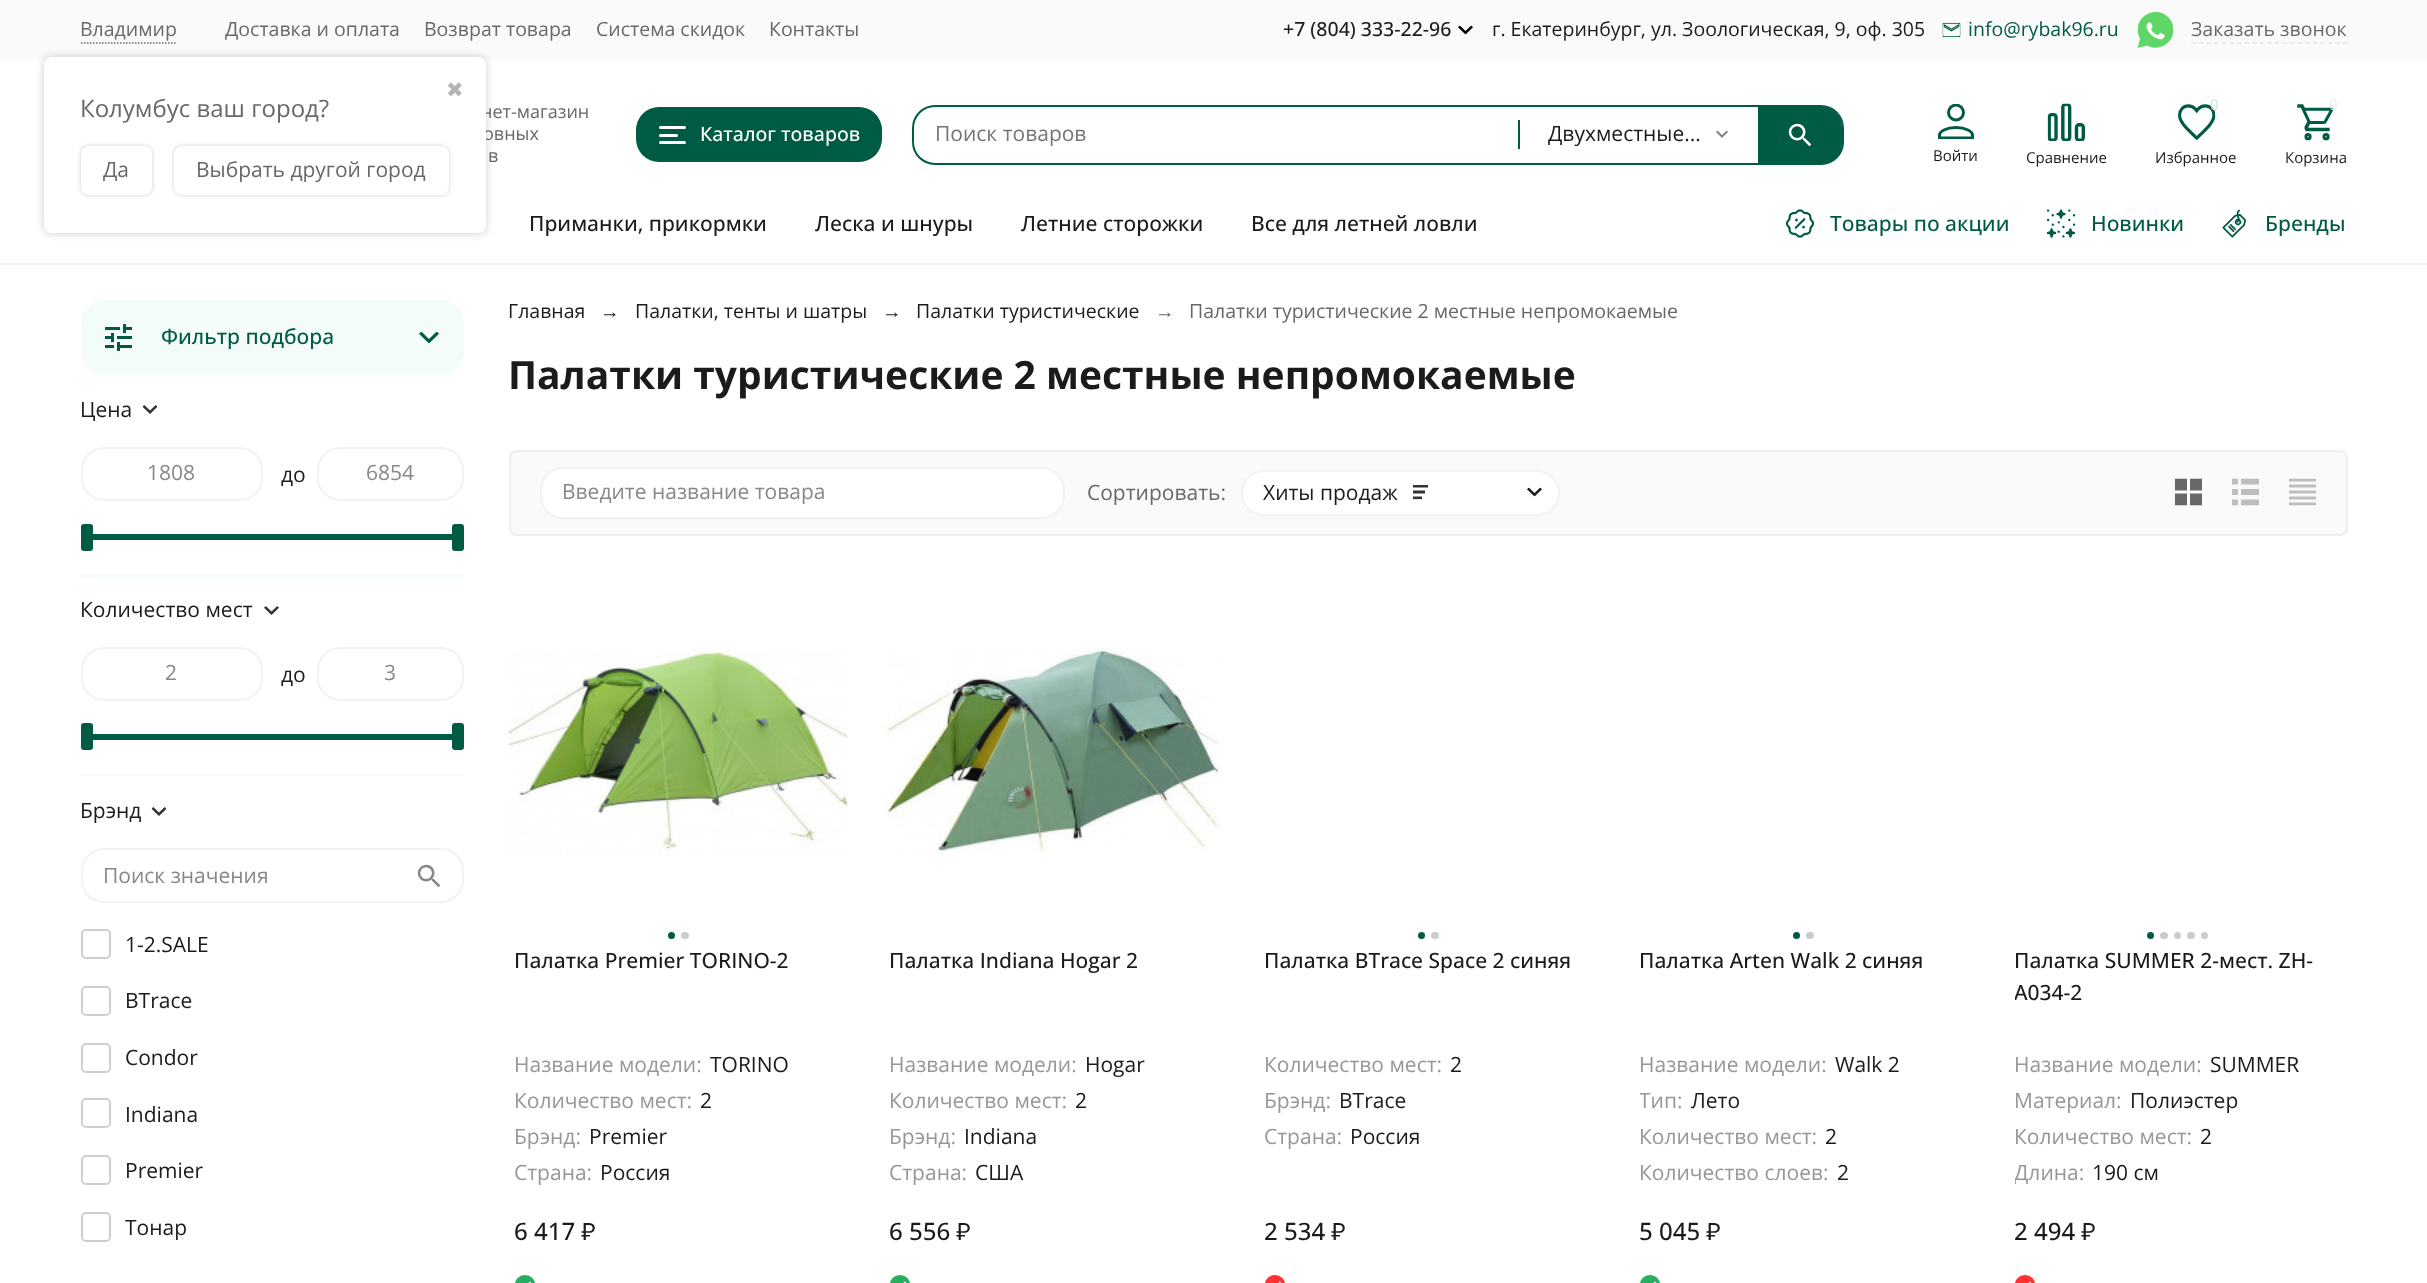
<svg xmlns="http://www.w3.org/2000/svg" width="2427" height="1283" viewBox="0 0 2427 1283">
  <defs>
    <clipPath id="clip1"><path d="M1640 1049h327v138H1640z"/></clipPath>
    <clipPath id="clip2"><path d="M2015 944h327v63H2015z"/></clipPath>
    <clipPath id="clip3"><path d="M2015 1049h327v138H2015z"/></clipPath>
  </defs>
  <rect width="100%" height="100%" fill="#fff"/>
  <path d="M0 263h2427v2H0z" fill="#f2f2f2"/>
  <path d="M0 0h2427v60H0z" fill="#fafafa"/>
  <image x="1458" y="25" width="15" height="10" href="img/1.png"/>
  <image x="1942" y="22" width="19" height="16" href="img/2.png"/>
  <image x="2137" y="12" width="37" height="36" href="img/3.png"/>
  <path d="M2191.5 43H2347.5" fill="none" stroke="#e5e5e5" stroke-width="1.5" stroke-dasharray="4.5 3.07"/>
  <path d="M81 43H177" fill="none" stroke="#686868" stroke-width="1.5" stroke-dasharray="1.5 1.5"/>
  <rect x="44" y="57" width="442" height="176" rx="8" fill="#00000033" filter="blur(4px)"/>
  <rect x="636" y="107" width="246" height="55" rx="23" fill="#005b45"/>
  <rect x="659" y="126" width="27" height="3" rx="1.5" fill="#fff"/>
  <rect x="659" y="134" width="19" height="3" rx="1.5" fill="#fff"/>
  <rect x="659" y="141" width="27" height="3" rx="1.5" fill="#fff"/>
  <rect x="913" y="106" width="930" height="58" rx="22" fill="none" stroke="#005b45" stroke-width="2"/>
  <path d="M1518 120h2v29H1518z" fill="#005b45"/>
  <image x="1716" y="131" width="12" height="7" href="img/4.png"/>
  <path d="M1758 107H1822C1833 107 1842 116 1842 127V144C1842 155 1833 164 1822 164H1758Z" fill="#005b45"/>
  <image x="1788" y="123" width="24" height="24" href="img/5.png"/>
  <image x="1938" y="103" width="36" height="37" href="img/6.png"/>
  <image x="2047" y="103" width="38" height="38" href="img/7.png"/>
  <image x="2178" y="104" width="38" height="37" href="img/8.png"/>
  <image x="2297" y="104" width="37" height="37" href="img/9.png"/>
  <image x="1785" y="209" width="30" height="29" href="img/10.png"/>
  <image x="2047" y="209" width="29" height="29" href="img/11.png"/>
  <image x="2222" y="209" width="24" height="29" href="img/12.png"/>
  <rect x="81" y="300" width="383" height="75" rx="23" fill="#f4fcfa"/>
  <image x="105" y="324" width="27" height="27" href="img/13.png"/>
  <image x="419" y="331" width="20" height="13" href="img/14.png"/>
  <path d="M81 575h383v2H81z" fill="#f4fcfa"/>
  <image x="142" y="405" width="16" height="9" href="img/15.png"/>
  <rect x="82" y="448" width="180" height="52" rx="22" fill="none" stroke="#f2f2f2" stroke-width="2"/>
  <rect x="318" y="448" width="145" height="52" rx="22" fill="none" stroke="#f2f2f2" stroke-width="2"/>
  <rect x="81" y="524" width="12" height="27" rx="3" fill="#005b45"/>
  <path d="M93 534h359v6H93z" fill="#005b45"/>
  <rect x="452" y="524" width="12" height="27" rx="3" fill="#005b45"/>
  <path d="M81 774h383v2H81z" fill="#f4fcfa"/>
  <image x="264" y="606" width="15" height="9" href="img/16.png"/>
  <rect x="82" y="648" width="180" height="52" rx="22" fill="none" stroke="#f2f2f2" stroke-width="2"/>
  <rect x="318" y="648" width="145" height="52" rx="22" fill="none" stroke="#f2f2f2" stroke-width="2"/>
  <rect x="81" y="723" width="12" height="27" rx="3" fill="#005b45"/>
  <path d="M93 734h359v6H93z" fill="#005b45"/>
  <rect x="452" y="723" width="12" height="27" rx="3" fill="#005b45"/>
  <image x="151" y="807" width="16" height="9" href="img/15.png"/>
  <rect x="82" y="849" width="381" height="53" rx="22" fill="none" stroke="#f2f2f2" stroke-width="2"/>
  <image x="417" y="864" width="24" height="24" href="img/17.png"/>
  <rect x="82" y="930" width="28" height="28" rx="4" fill="none" stroke="#cfcfcf" stroke-width="2"/>
  <rect x="82" y="987" width="28" height="28" rx="4" fill="none" stroke="#cfcfcf" stroke-width="2"/>
  <rect x="82" y="1044" width="28" height="28" rx="4" fill="none" stroke="#cfcfcf" stroke-width="2"/>
  <rect x="82" y="1099" width="28" height="28" rx="4" fill="none" stroke="#cfcfcf" stroke-width="2"/>
  <rect x="82" y="1156" width="28" height="28" rx="4" fill="none" stroke="#cfcfcf" stroke-width="2"/>
  <rect x="82" y="1213" width="28" height="28" rx="4" fill="none" stroke="#cfcfcf" stroke-width="2"/>
  <rect x="510" y="451" width="1837" height="84" rx="7" fill="#fafafa" stroke="#eee" stroke-width="2"/>
  <rect x="541" y="468" width="523" height="50" rx="22" fill="#fff" stroke="#f2f2f2" stroke-width="2"/>
  <rect x="1242" y="471" width="317" height="44" rx="22" fill="#fff" stroke="#f2f2f2" stroke-width="2"/>
  <image x="1413" y="485" width="15" height="15" href="img/18.png"/>
  <image x="1527" y="487" width="15" height="10" href="img/19.png"/>
  <image x="2175" y="478" width="27" height="28" href="img/20.png"/>
  <image x="2232" y="478" width="27" height="28" href="img/21.png"/>
  <image x="2289" y="478" width="27" height="28" href="img/22.png"/>
  <image x="508" y="651" width="340" height="205" href="img/23.png"/>
  <circle cx="671.5" cy="935.5" r="3.5" fill="#005b45"/>
  <rect x="681" y="932" width="8" height="7" rx="3.5" fill="#ccc"/>
  <image x="515" y="1275" width="20" height="8" href="img/24.png"/>
  <image x="884" y="647" width="337" height="208" href="img/25.png"/>
  <image x="890" y="1275" width="20" height="8" href="img/24.png"/>
  <circle cx="1421.5" cy="935.5" r="3.5" fill="#005b45"/>
  <rect x="1431" y="932" width="8" height="7" rx="3.5" fill="#ccc"/>
  <image x="1265" y="1275" width="20" height="8" href="img/26.png"/>
  <circle cx="1796.5" cy="935.5" r="3.5" fill="#005b45"/>
  <rect x="1806" y="932" width="8" height="7" rx="3.5" fill="#ccc"/>
  <image x="1640" y="1275" width="20" height="8" href="img/24.png"/>
  <circle cx="2150.5" cy="935.5" r="3.5" fill="#005b45"/>
  <rect x="2160" y="932" width="8" height="7" rx="3.5" fill="#ccc"/>
  <circle cx="2177.5" cy="935.5" r="3.5" fill="#ccc"/>
  <rect x="2187" y="932" width="8" height="7" rx="3.5" fill="#ccc"/>
  <circle cx="2204.5" cy="935.5" r="3.5" fill="#ccc"/>
  <image x="2015" y="1275" width="20" height="8" href="img/27.png"/>
  <g font-family="Open Sans" font-size="19.5" fill="#686868">
    <text x="225" y="36">Доставка и оплата</text>
    <text x="424" y="36">Возврат товара</text>
    <text x="596" y="36">Система скидок</text>
    <text x="769" y="36">Контакты</text>
  </g>
  <text x="1283" y="36" font-family="Open Sans" font-size="19.5" font-weight="500" fill="#1b1b1b">+7 (804) 333-22-96</text>
  <text x="1492" y="36" font-family="Open Sans" font-size="19.5" fill="#1b1b1b">г. Екатеринбург, ул. Зоологическая, 9, оф. 305</text>
  <text x="1968" y="36" font-family="Open Sans" font-size="19.5" fill="#005b45">info@rybak96.ru</text>
  <g font-family="Open Sans" font-size="19.5" fill="#686868">
    <text x="2191" y="36">Заказать звонок</text>
    <text x="80" y="36">Владимир</text>
  </g>
  <g font-family="Open Sans" font-size="18" fill="#686868">
    <text x="481" y="118">нет-магазин</text>
    <text x="483" y="140">овных</text>
  </g>
  <rect x="44" y="57" width="442" height="176" rx="8" fill="#fff"/>
  <text x="446" y="97" font-family="DejaVu Sans" font-size="21" fill="#b4b4b4">✖</text>
  <rect x="174" y="146" width="275" height="49" rx="8" fill="#00000033" filter="blur(2px)"/>
  <rect x="174" y="146" width="275" height="49" rx="8" fill="#fff"/>
  <text x="196" y="177" font-family="Open Sans" font-size="21" fill="#686868">Выбрать другой город</text>
  <rect x="81" y="146" width="71" height="49" rx="8" fill="#00000033" filter="blur(2px)"/>
  <rect x="81" y="146" width="71" height="49" rx="8" fill="#fff"/>
  <text x="103" y="177" font-family="Open Sans" font-size="21" fill="#686868">Да</text>
  <text x="80" y="117" font-family="Open Sans" font-size="24" fill="#686868">Колумбус ваш город?</text>
  <text x="488" y="162" font-family="Open Sans" font-size="18" fill="#686868">в</text>
  <text x="700" y="141" font-family="Open Sans" font-size="19.5" font-weight="500" fill="#fff">Каталог товаров</text>
  <text x="935" y="141" font-family="Open Sans" font-size="21" fill="#757575">Поиск товаров</text>
  <text x="1548" y="141" font-family="Open Sans" font-size="21" fill="#1b1b1b">Двухместные...</text>
  <g font-family="Open Sans" font-size="15" fill="#1b1b1b">
    <text x="1933" y="161">Войти</text>
    <text x="2026" y="163">Сравнение</text>
  </g>
  <text x="2210" y="110" font-family="Open Sans" font-size="15" fill="#d1e1dd">0</text>
  <text x="2155" y="163" font-family="Open Sans" font-size="15" fill="#1b1b1b">Избранное</text>
  <text x="2329" y="110" font-family="Open Sans" font-size="15" fill="#e4eeec">0</text>
  <text x="2285" y="163" font-family="Open Sans" font-size="15" fill="#1b1b1b">Корзина</text>
  <g font-family="Open Sans" font-size="21" font-weight="500" fill="#1b1b1b">
    <text x="529" y="231">Приманки, прикормки</text>
    <text x="815" y="231">Леска и шнуры</text>
    <text x="1021" y="231">Летние сторожки</text>
    <text x="1251" y="231">Все для летней ловли</text>
  </g>
  <g font-family="Open Sans" font-size="21" font-weight="500" fill="#005b45">
    <text x="1830" y="231">Товары по акции</text>
    <text x="2091" y="231">Новинки</text>
    <text x="2265" y="231">Бренды</text>
    <text x="161" y="344">Фильтр подбора</text>
  </g>
  <text x="80" y="417" font-family="Open Sans" font-size="21" fill="#1b1b1b">Цена</text>
  <text x="147" y="480" font-family="Open Sans" font-size="21" fill="#888">1808</text>
  <text x="281" y="482" font-family="Open Sans" font-size="21" fill="#1b1b1b">до</text>
  <text x="366" y="480" font-family="Open Sans" font-size="21" fill="#888">6854</text>
  <text x="80" y="617" font-family="Open Sans" font-size="21" fill="#1b1b1b">Количество мест</text>
  <text x="165" y="680" font-family="Open Sans" font-size="21" fill="#888">2</text>
  <text x="281" y="682" font-family="Open Sans" font-size="21" fill="#1b1b1b">до</text>
  <text x="384" y="680" font-family="Open Sans" font-size="21" fill="#888">3</text>
  <text x="80" y="818" font-family="Open Sans" font-size="21" fill="#1b1b1b">Брэнд</text>
  <text x="103" y="883" font-family="Open Sans" font-size="21" fill="#888">Поиск значения</text>
  <g font-family="Open Sans" font-size="21" fill="#1b1b1b">
    <text x="125" y="952">1-2.SALE</text>
    <text x="125" y="1008">BTrace</text>
    <text x="125" y="1065">Condor</text>
    <text x="125" y="1122">Indiana</text>
    <text x="125" y="1178">Premier</text>
    <text x="125" y="1235">Тонар</text>
  </g>
  <text x="508" y="318" font-family="Open Sans" font-size="19.5" fill="#1b1b1b">Главная</text>
  <text x="600" y="318" font-family="Liberation Sans" font-size="19.5" fill="#1b1b1b">→</text>
  <text x="635" y="318" font-family="Open Sans" font-size="19.5" fill="#1b1b1b">Палатки, тенты и шатры</text>
  <text x="882" y="318" font-family="Liberation Sans" font-size="19.5" fill="#1b1b1b">→</text>
  <text x="916" y="318" font-family="Open Sans" font-size="19.5" fill="#1b1b1b">Палатки туристические</text>
  <text x="1155" y="318" font-family="Liberation Sans" font-size="19.5" fill="#686868">→</text>
  <text x="1189" y="318" font-family="Open Sans" font-size="19.5" fill="#686868">Палатки туристические 2 местные непромокаемые</text>
  <text x="508" y="389" font-family="Open Sans" font-size="39" font-weight="bold" fill="#1b1b1b">Палатки туристические 2 местные непромокаемые</text>
  <text x="562" y="499" font-family="Open Sans" font-size="21" fill="#888">Введите название товара</text>
  <text x="1087" y="500" font-family="Open Sans" font-size="21" fill="#686868">Сортировать:</text>
  <text x="1263" y="500" font-family="Open Sans" font-size="21" fill="#1b1b1b">Хиты продаж</text>
  <text x="514" y="968" font-family="Open Sans" font-size="21" font-weight="500" fill="#1b1b1b">Палатка Premier TORINO-2</text>
  <text x="514" y="1072" font-family="Open Sans" font-size="21" fill="#979797">Название модели:</text>
  <text x="710" y="1072" font-family="Open Sans" font-size="21" fill="#1b1b1b">TORINO</text>
  <text x="514" y="1108" font-family="Open Sans" font-size="21" fill="#979797">Количество мест:</text>
  <text x="700" y="1108" font-family="Open Sans" font-size="21" fill="#1b1b1b">2</text>
  <text x="514" y="1144" font-family="Open Sans" font-size="21" fill="#979797">Брэнд:</text>
  <text x="589" y="1144" font-family="Open Sans" font-size="21" fill="#1b1b1b">Premier</text>
  <text x="514" y="1180" font-family="Open Sans" font-size="21" fill="#979797">Страна:</text>
  <text x="600" y="1180" font-family="Open Sans" font-size="21" fill="#1b1b1b">Россия</text>
  <text x="514" y="1240" font-family="Open Sans" font-size="24" font-weight="500" fill="#1b1b1b">6 417</text>
  <text x="581" y="1240" font-family="Nunito Sans" font-size="24" font-weight="500" fill="#1b1b1b">₽</text>
  <text x="889" y="968" font-family="Open Sans" font-size="21" font-weight="500" fill="#1b1b1b">Палатка Indiana Hogar 2</text>
  <text x="889" y="1072" font-family="Open Sans" font-size="21" fill="#979797">Название модели:</text>
  <text x="1085" y="1072" font-family="Open Sans" font-size="21" fill="#1b1b1b">Hogar</text>
  <text x="889" y="1108" font-family="Open Sans" font-size="21" fill="#979797">Количество мест:</text>
  <text x="1075" y="1108" font-family="Open Sans" font-size="21" fill="#1b1b1b">2</text>
  <text x="889" y="1144" font-family="Open Sans" font-size="21" fill="#979797">Брэнд:</text>
  <text x="964" y="1144" font-family="Open Sans" font-size="21" fill="#1b1b1b">Indiana</text>
  <text x="889" y="1180" font-family="Open Sans" font-size="21" fill="#979797">Страна:</text>
  <text x="975" y="1180" font-family="Open Sans" font-size="21" fill="#1b1b1b">США</text>
  <text x="889" y="1240" font-family="Open Sans" font-size="24" font-weight="500" fill="#1b1b1b">6 556</text>
  <text x="956" y="1240" font-family="Nunito Sans" font-size="24" font-weight="500" fill="#1b1b1b">₽</text>
  <text x="1264" y="968" font-family="Open Sans" font-size="21" font-weight="500" fill="#1b1b1b">Палатка BTrace Space 2 синяя</text>
  <text x="1264" y="1072" font-family="Open Sans" font-size="21" fill="#979797">Количество мест:</text>
  <text x="1450" y="1072" font-family="Open Sans" font-size="21" fill="#1b1b1b">2</text>
  <text x="1264" y="1108" font-family="Open Sans" font-size="21" fill="#979797">Брэнд:</text>
  <text x="1339" y="1108" font-family="Open Sans" font-size="21" fill="#1b1b1b">BTrace</text>
  <text x="1264" y="1144" font-family="Open Sans" font-size="21" fill="#979797">Страна:</text>
  <text x="1350" y="1144" font-family="Open Sans" font-size="21" fill="#1b1b1b">Россия</text>
  <text x="1264" y="1240" font-family="Open Sans" font-size="24" font-weight="500" fill="#1b1b1b">2 534</text>
  <text x="1331" y="1240" font-family="Nunito Sans" font-size="24" font-weight="500" fill="#1b1b1b">₽</text>
  <text x="1639" y="968" font-family="Open Sans" font-size="21" font-weight="500" fill="#1b1b1b">Палатка Arten Walk 2 синяя</text>
  <text x="1639" y="1072" font-family="Open Sans" font-size="21" fill="#979797">Название модели:</text>
  <text x="1835" y="1072" font-family="Open Sans" font-size="21" fill="#1b1b1b">Walk 2</text>
  <g clip-path="url(#clip1)">
    <text x="1639" y="1108" font-family="Open Sans" font-size="21" fill="#979797">Тип:</text>
  </g>
  <text x="1691" y="1108" font-family="Open Sans" font-size="21" fill="#1b1b1b">Лето</text>
  <text x="1639" y="1144" font-family="Open Sans" font-size="21" fill="#979797">Количество мест:</text>
  <text x="1825" y="1144" font-family="Open Sans" font-size="21" fill="#1b1b1b">2</text>
  <text x="1639" y="1180" font-family="Open Sans" font-size="21" fill="#979797">Количество слоев:</text>
  <text x="1837" y="1180" font-family="Open Sans" font-size="21" fill="#1b1b1b">2</text>
  <text x="1639" y="1240" font-family="Open Sans" font-size="24" font-weight="500" fill="#1b1b1b">5 045</text>
  <text x="1706" y="1240" font-family="Nunito Sans" font-size="24" font-weight="500" fill="#1b1b1b">₽</text>
  <text x="2014" y="968" font-family="Open Sans" font-size="21" font-weight="500" fill="#1b1b1b">Палатка SUMMER 2-мест. ZH-</text>
  <g clip-path="url(#clip2)">
    <text x="2014" y="1000" font-family="Open Sans" font-size="21" font-weight="500" fill="#1b1b1b">A034-2</text>
  </g>
  <text x="2014" y="1072" font-family="Open Sans" font-size="21" fill="#979797">Название модели:</text>
  <text x="2210" y="1072" font-family="Open Sans" font-size="21" fill="#1b1b1b">SUMMER</text>
  <text x="2014" y="1108" font-family="Open Sans" font-size="21" fill="#979797">Материал:</text>
  <text x="2130" y="1108" font-family="Open Sans" font-size="21" fill="#1b1b1b">Полиэстер</text>
  <text x="2014" y="1144" font-family="Open Sans" font-size="21" fill="#979797">Количество мест:</text>
  <text x="2200" y="1144" font-family="Open Sans" font-size="21" fill="#1b1b1b">2</text>
  <g clip-path="url(#clip3)">
    <text x="2014" y="1180" font-family="Open Sans" font-size="21" fill="#979797">Длина:</text>
  </g>
  <text x="2092" y="1180" font-family="Open Sans" font-size="21" fill="#1b1b1b">190 см</text>
  <text x="2014" y="1240" font-family="Open Sans" font-size="24" font-weight="500" fill="#1b1b1b">2 494</text>
  <text x="2081" y="1240" font-family="Nunito Sans" font-size="24" font-weight="500" fill="#1b1b1b">₽</text>
</svg>
